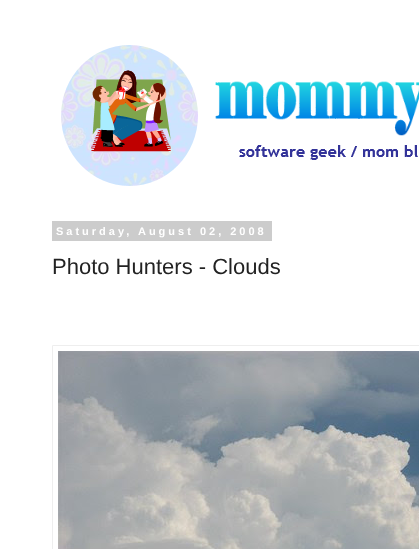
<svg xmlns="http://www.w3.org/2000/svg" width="419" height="549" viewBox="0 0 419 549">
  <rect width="100%" height="100%" fill="#fff"/>
  <image x="61" y="45" width="358" height="141" href="img/1.png"/>
  <path d="M52 221h220v20H52z" fill="#ccc"/>
  <path d="M52.5 345.5h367v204H52.5z" fill="none" stroke="#eee"/>
  <image x="58" y="351" width="361" height="198" href="img/2.png"/>
  <text x="56" y="235" font-family="Liberation Sans" font-size="11" font-weight="bold" letter-spacing="3" fill="#fff">Saturday, August 02, 2008</text>
  <text x="52" y="274" font-family="Liberation Sans" font-size="22" fill="#222">Photo Hunters - Clouds</text>
</svg>
